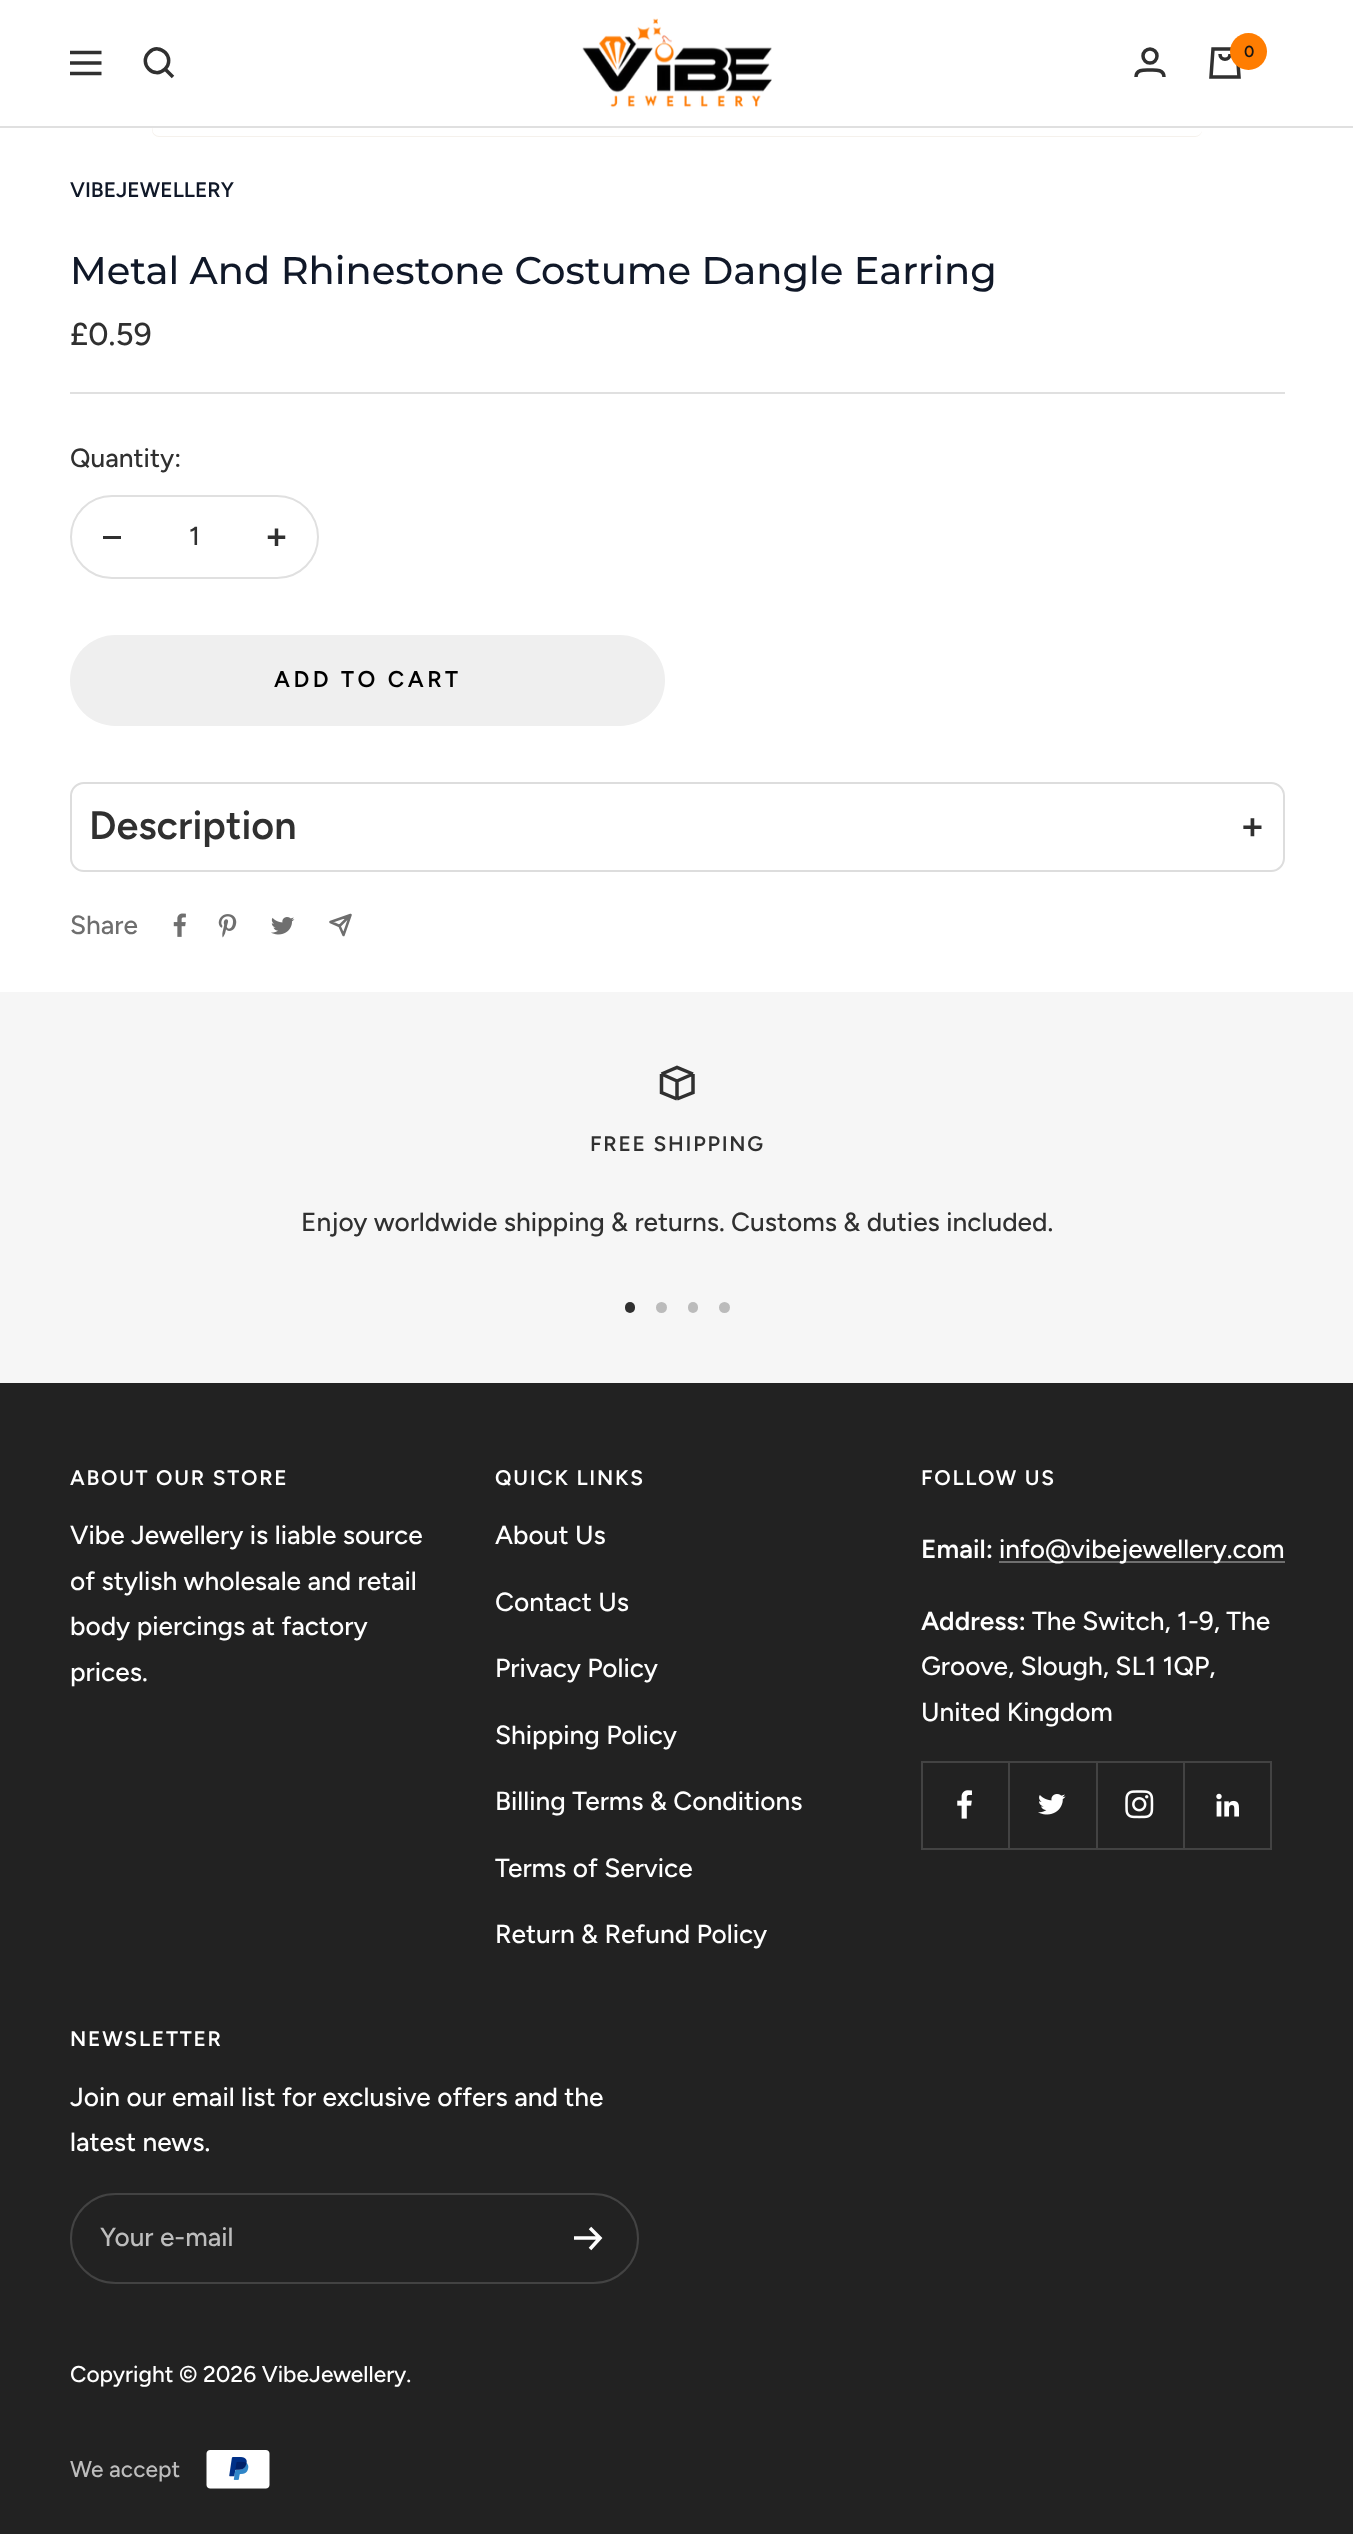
<svg xmlns="http://www.w3.org/2000/svg" width="1353" height="2534" viewBox="0 0 1353 2534">
  <rect width="100%" height="100%" fill="#fff"/>
  <rect x="152" y="-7" width="1050" height="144" rx="7" fill="#f5f1ec"/>
  <path d="M0 126V128H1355V2H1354V126Z" fill="#e0e0e0"/>
  <path d="M152 0h1050v126H152z" fill="#fff"/>
  <path d="M70 52.5H101.5M70 73.5H101.5ZM70 63H101.5Z" fill="none" stroke="#303030" stroke-width="3.5"/>
  <path d="M165 69C176 58 160 41.5 149 52.5C138 63.5 154 80 165 69ZM165 69L173 77" fill="none" stroke="#303030" stroke-width="3.5"/>
  <image x="582" y="18" width="190" height="90" href="img/1.png"/>
  <circle cx="1150" cy="56" r="7" fill="none" stroke="#303030" stroke-width="3.5"/>
  <path d="M1136 77C1136 69 1144.5 70 1150 70C1155 70 1164 69 1164 77" fill="none" stroke="#303030" stroke-width="3.5"/>
  <path d="M1213 49H1237L1239 77H1211ZM1220 54C1220 61 1230 61 1230 54" fill="none" stroke="#303030" stroke-width="3.5"/>
  <circle cx="1248.5" cy="51.5" r="18.5" fill="#ff7d01"/>
  <image x="152" y="128" width="1050" height="8" href="img/2.png"/>
  <path d="M70 392h1215v2H70z" fill="#e0e0e0"/>
  <rect x="71" y="496" width="247" height="82" rx="41" fill="none" stroke="#e0e0e0" stroke-width="2"/>
  <path d="M103 536h18v3H103z" fill="#303030"/>
  <image x="267" y="528" width="19" height="18" href="img/3.png"/>
  <rect x="70" y="635" width="595" height="91" rx="45.5" fill="#efefef"/>
  <rect x="71" y="783" width="1213" height="88" rx="13" fill="none" stroke="#ddd" stroke-width="2"/>
  <image x="173" y="913" width="13" height="24" href="img/4.png"/>
  <image x="218" y="914" width="19" height="24" href="img/5.png"/>
  <image x="271" y="917" width="24" height="18" href="img/6.png"/>
  <path d="M350.5 915L343.5 935L339.5 926M350.5 915L330.5 922L339.5 926M350.5 915L339.5 926" fill="none" stroke="#6e6e6e" stroke-width="2.5" stroke-linecap="round" stroke-linejoin="round"/>
  <path d="M0 992h1353v391H0z" fill="#f6f6f6"/>
  <path d="M677 1099L693 1092.5V1074M677 1099L661.5 1092.5V1074M677 1099V1081M693 1074L677 1067.5L661.5 1074M693 1074L677 1081M661.5 1074L677 1081" fill="none" stroke="#303030" stroke-width="3.5"/>
  <rect x="625" y="1302" width="10" height="11" rx="5" fill="#303030"/>
  <circle cx="661.5" cy="1307.5" r="5.5" fill="#bbb"/>
  <rect x="688" y="1302" width="10" height="11" rx="5" fill="#bbb"/>
  <circle cx="724.5" cy="1307.5" r="5.5" fill="#bbb"/>
  <path d="M0 1383h1353v1151H0z" fill="#222"/>
  <path d="M999 1561h286v2H999z" fill="#6f6f6f"/>
  <path d="M922 1848V1850H1010V1762H1008V1848Z" fill="#434343"/>
  <path d="M921 1848h1v2H921z" fill="#434343"/>
  <path d="M1008 1761h2v1H1008z" fill="#434343"/>
  <path d="M921 1761h87v2H921z" fill="#434343"/>
  <path d="M921 1761h2v87H921z" fill="#434343"/>
  <image x="957" y="1790" width="15" height="29" href="img/7.png"/>
  <path d="M1010 1848V1850H1097V1762H1096V1848Z" fill="#434343"/>
  <path d="M1008 1761h88v2H1008z" fill="#434343"/>
  <image x="1038" y="1794" width="28" height="21" href="img/8.png"/>
  <path d="M1097 1848V1850H1185V1762H1183V1848Z" fill="#434343"/>
  <path d="M1183 1761h2v1H1183z" fill="#434343"/>
  <path d="M1096 1761h87v2H1096z" fill="#434343"/>
  <path d="M1097 1761h1v87H1097z" fill="#434343"/>
  <image x="1125" y="1790" width="29" height="29" href="img/9.png"/>
  <path d="M1185 1848V1850H1272V1762H1270V1848Z" fill="#434343"/>
  <path d="M1270 1761h2v1H1270z" fill="#434343"/>
  <path d="M1183 1761h88v2H1183z" fill="#434343"/>
  <image x="1216" y="1793" width="23" height="24" href="img/10.png"/>
  <rect x="71" y="2194" width="567" height="89" rx="44.5" fill="none" stroke="#434343" stroke-width="2"/>
  <path d="M574 2238H600M590 2228L600 2238L590 2249" fill="none" stroke="#fff" stroke-width="3.5"/>
  <image x="206" y="2450" width="64" height="39" href="img/11.png"/>
  <text x="1244" y="57" font-family="Figtree" font-size="16" font-weight="600" fill="#161616">0</text>
  <text x="70" y="197" font-family="Figtree" font-size="21" font-weight="600" fill="#101828">VIBEJEWELLERY</text>
  <text x="70" y="284" font-family="Montserrat" font-size="38.5" font-weight="500" fill="#101828">Metal And Rhinestone Costume Dangle Earring</text>
  <text x="70" y="345" font-family="Figtree" font-size="31.5" font-weight="500" fill="#303030">£0.59</text>
  <g font-family="Figtree" font-size="26.25" font-weight="500" fill="#303030">
    <text x="70" y="467">Quantity:</text>
    <text x="189" y="545">1</text>
  </g>
  <text x="274" y="687" font-family="Figtree" font-size="22.75" font-weight="600" letter-spacing="3.5" fill="#000">ADD TO CART</text>
  <g font-family="Figtree" font-size="39.5" font-weight="600" fill="#303030">
    <text x="89" y="839">Description</text>
    <text x="1240" y="839">+</text>
  </g>
  <text x="70" y="934" font-family="Figtree" font-size="26.25" font-weight="500" fill="#6e6e6e">Share</text>
  <text x="590" y="1151" font-family="Figtree" font-size="21" font-weight="600" letter-spacing="1.75" fill="#303030">FREE SHIPPING</text>
  <text x="301" y="1231" font-family="Figtree" font-size="26.25" font-weight="500" fill="#303030">Enjoy worldwide shipping &amp; returns. Customs &amp; duties included.</text>
  <text x="70" y="1485" font-family="Figtree" font-size="21" font-weight="600" letter-spacing="1.75" fill="#fff">ABOUT OUR STORE</text>
  <g font-family="Figtree" font-size="26.25" font-weight="500" fill="#fff">
    <text x="70" y="1544">Vibe Jewellery is liable source</text>
    <text x="70" y="1590">of stylish wholesale and retail</text>
    <text x="70" y="1635">body piercings at factory</text>
    <text x="70" y="1681">prices.</text>
  </g>
  <text x="495" y="1485" font-family="Figtree" font-size="21" font-weight="600" letter-spacing="1.75" fill="#fff">QUICK LINKS</text>
  <g font-family="Figtree" font-size="26.25" font-weight="500" fill="#fff">
    <text x="495" y="1544">About Us</text>
    <text x="495" y="1611">Contact Us</text>
    <text x="495" y="1677">Privacy Policy</text>
    <text x="495" y="1744">Shipping Policy</text>
    <text x="495" y="1810">Billing Terms &amp; Conditions</text>
    <text x="495" y="1877">Terms of Service</text>
    <text x="495" y="1943">Return &amp; Refund Policy</text>
  </g>
  <text x="921" y="1485" font-family="Figtree" font-size="21" font-weight="600" letter-spacing="1.75" fill="#fff">FOLLOW US</text>
  <text x="921" y="1558" font-family="Figtree" font-size="26.25" font-weight="600" fill="#fff">Email:</text>
  <text x="999" y="1558" font-family="Figtree" font-size="26.25" font-weight="500" fill="#fff">info@vibejewellery.com</text>
  <text x="921" y="1630" font-family="Figtree" font-size="26.25" font-weight="600" fill="#fff">Address:</text>
  <g font-family="Figtree" font-size="26.25" font-weight="500" fill="#fff">
    <text x="1032" y="1630">The Switch, 1-9, The</text>
    <text x="921" y="1675">Groove, Slough, SL1 1QP,</text>
    <text x="921" y="1721">United Kingdom</text>
  </g>
  <text x="70" y="2046" font-family="Figtree" font-size="21" font-weight="600" letter-spacing="1.75" fill="#fff">NEWSLETTER</text>
  <g font-family="Figtree" font-size="26.25" font-weight="500" fill="#fff">
    <text x="70" y="2106">Join our email list for exclusive offers and the</text>
    <text x="70" y="2151">latest news.</text>
  </g>
  <text x="100" y="2246" font-family="Figtree" font-size="26.25" font-weight="500" fill="#bdbdbd">Your e-mail</text>
  <text x="70" y="2382" font-family="Figtree" font-size="22.75" font-weight="500" fill="#fff">Copyright © 2026 VibeJewellery.</text>
  <text x="70" y="2477" font-family="Figtree" font-size="22.75" font-weight="500" fill="#bdbdbd">We accept</text>
</svg>
